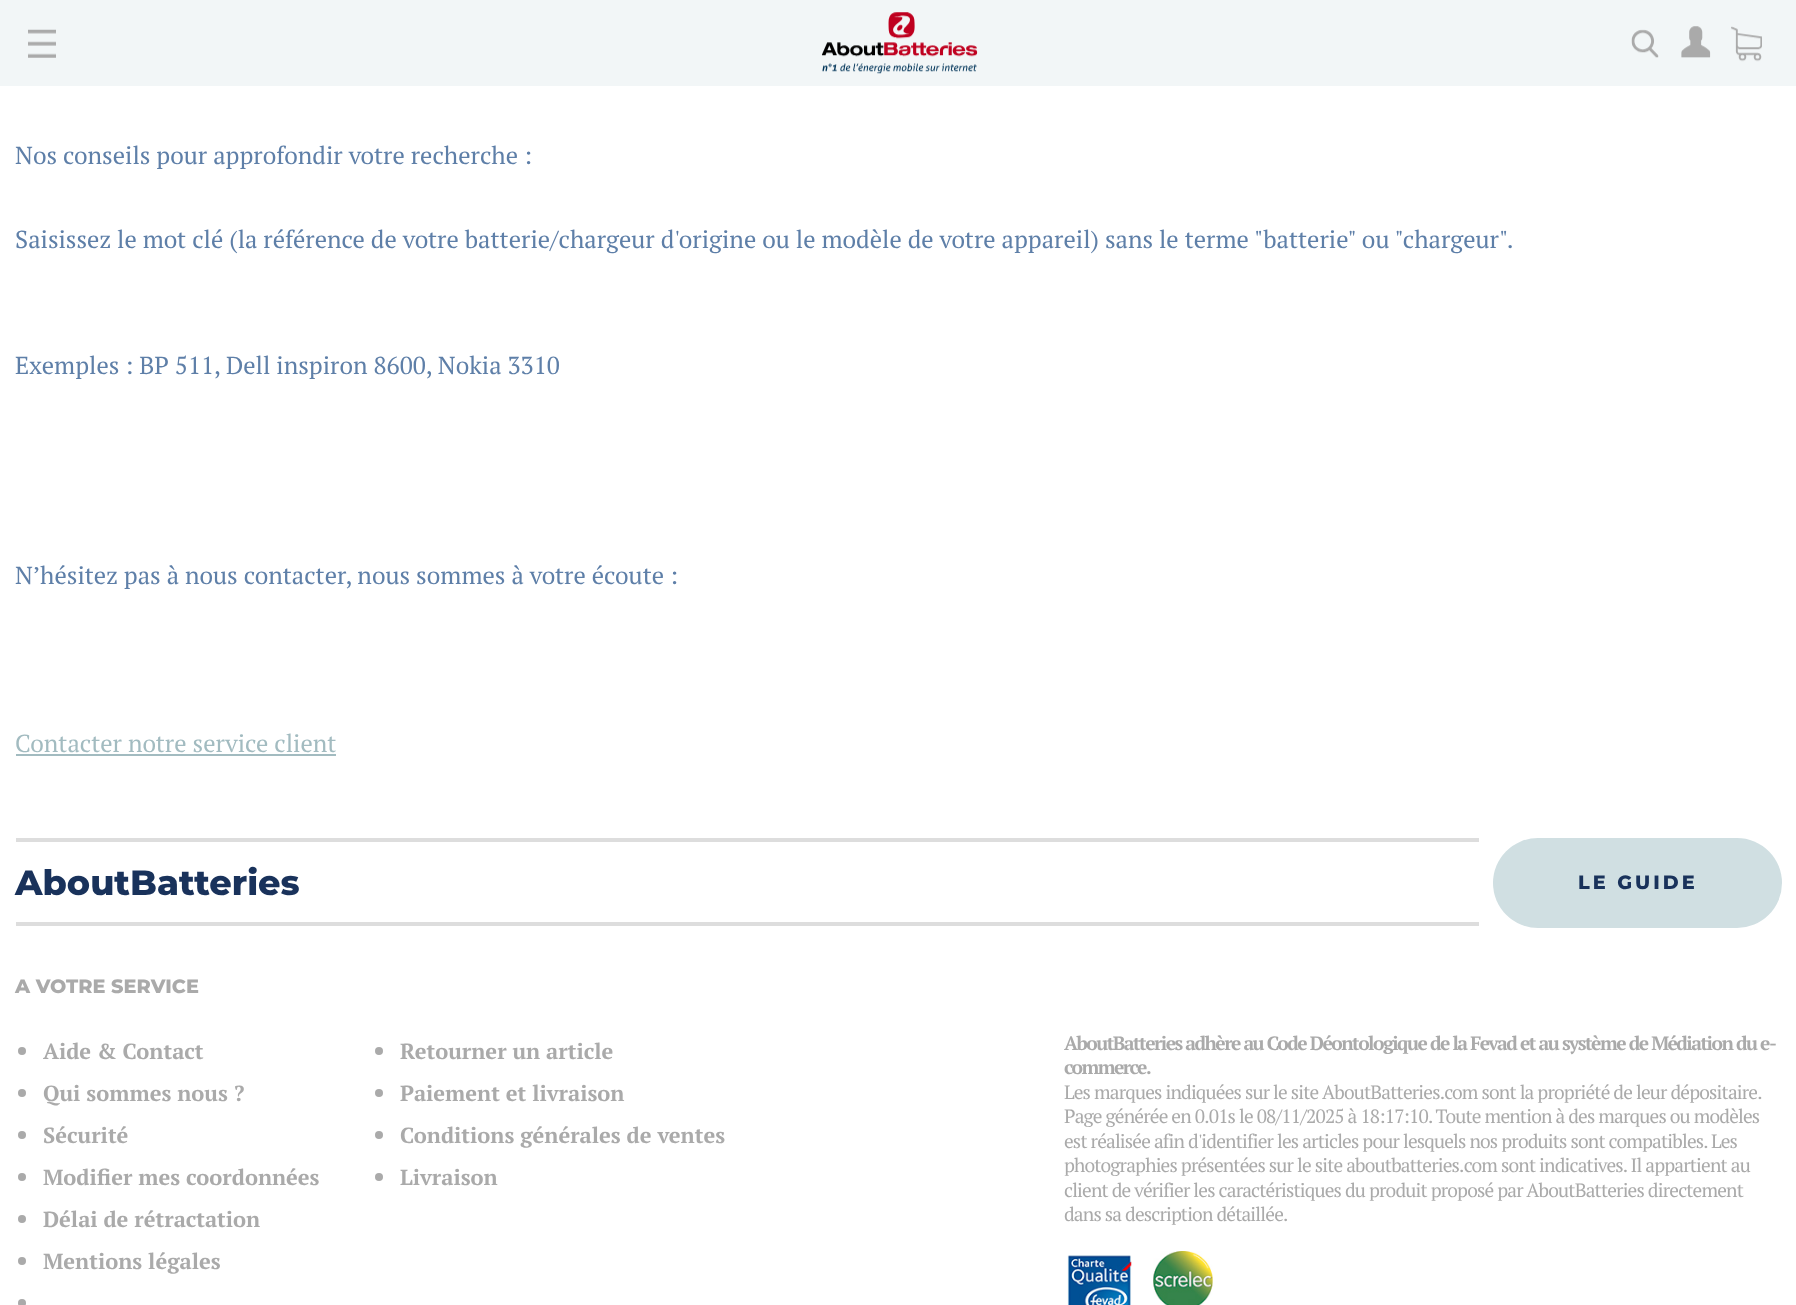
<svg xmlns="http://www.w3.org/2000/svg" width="1796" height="1305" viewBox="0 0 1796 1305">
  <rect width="100%" height="100%" fill="#fff"/>
  <path d="M0 0h1796v86H0z" fill="#f2f6f7"/>
  <image x="28" y="29" width="28" height="29" href="img/1.png"/>
  <image x="821" y="12" width="157" height="62" href="img/2.png"/>
  <image x="1631" y="29" width="28" height="29" href="img/3.png"/>
  <image x="1681" y="26" width="30" height="32" href="img/4.png"/>
  <image x="1731" y="26" width="31" height="36" href="img/5.png"/>
  <path d="M16 754h320v2H16z" fill="#a2bbc0"/>
  <path d="M16 838h1463v4H16z" fill="#ddd"/>
  <path d="M16 922h1463v4H16z" fill="#ddd"/>
  <rect x="1493" y="838" width="289" height="90" rx="45" fill="#d0dfe2"/>
  <circle cx="22" cy="1051" r="4" fill="#aaa"/>
  <circle cx="22" cy="1093" r="4" fill="#aaa"/>
  <circle cx="22" cy="1135" r="4" fill="#aaa"/>
  <circle cx="22" cy="1177" r="4" fill="#aaa"/>
  <circle cx="379" cy="1051" r="4" fill="#aaa"/>
  <circle cx="379" cy="1093" r="4" fill="#aaa"/>
  <circle cx="379" cy="1135" r="4" fill="#aaa"/>
  <circle cx="379" cy="1177" r="4" fill="#aaa"/>
  <circle cx="22" cy="1219" r="4" fill="#aaa"/>
  <circle cx="22" cy="1261" r="4" fill="#aaa"/>
  <circle cx="22" cy="1303" r="4" fill="#aaa"/>
  <image x="1067" y="1255" width="65" height="50" href="img/6.png"/>
  <image x="1153" y="1251" width="60" height="54" href="img/7.png"/>
  <g font-family="PT Serif" font-size="24.5" fill="#5e7fa8">
    <text x="15" y="164">Nos conseils pour approfondir votre recherche :</text>
    <text x="15" y="248">Saisissez le mot clé (la référence de votre batterie/chargeur d'origine ou le modèle de votre appareil) sans le terme "batterie" ou "chargeur".</text>
    <text x="15" y="374">Exemples : BP 511, Dell inspiron 8600, Nokia 3310</text>
    <text x="15" y="584">N’hésitez pas à nous contacter, nous sommes à votre écoute :</text>
  </g>
  <text x="15" y="752" font-family="PT Serif" font-size="24.5" fill="#a2bbc0">Contacter notre service client</text>
  <text x="15" y="895" font-family="Montserrat" font-size="35" font-weight="800" fill="#19325b">AboutBatteries</text>
  <text x="1578" y="889" font-family="Montserrat" font-size="19.25" font-weight="800" letter-spacing="3" fill="#19325b">LE GUIDE</text>
  <text x="15" y="993" font-family="Montserrat" font-size="19.25" font-weight="800" fill="#aaa">A VOTRE SERVICE</text>
  <g font-family="PT Serif" font-size="21.9" font-weight="bold" fill="#aaa">
    <text x="43" y="1059">Aide &amp; Contact</text>
    <text x="43" y="1101">Qui sommes nous ?</text>
    <text x="43" y="1143">Sécurité</text>
    <text x="43" y="1185">Modifier mes coordonnées</text>
    <text x="400" y="1059">Retourner un article</text>
    <text x="400" y="1101">Paiement et livraison</text>
    <text x="400" y="1143">Conditions générales de ventes</text>
    <text x="400" y="1185">Livraison</text>
    <text x="43" y="1227">Délai de rétractation</text>
    <text x="43" y="1269">Mentions légales</text>
  </g>
  <g font-family="PT Serif" font-size="19.25" font-weight="bold" letter-spacing="-1.52" fill="#aaa">
    <text x="1064" y="1050">AboutBatteries adhère au Code Déontologique de la Fevad et au système de Médiation du e-</text>
    <text x="1064" y="1074">commerce.</text>
  </g>
  <g font-family="PT Serif" font-size="19.25" letter-spacing="-0.82" fill="#aaa">
    <text x="1064" y="1099">Les marques indiquées sur le site AboutBatteries.com sont la propriété de leur dépositaire.</text>
    <text x="1064" y="1123">Page générée en 0.01s le 08/11/2025 à 18:17:10. Toute mention à des marques ou modèles</text>
    <text x="1064" y="1148">est réalisée afin d'identifier les articles pour lesquels nos produits sont compatibles. Les</text>
    <text x="1064" y="1172">photographies présentées sur le site aboutbatteries.com sont indicatives. Il appartient au</text>
    <text x="1064" y="1197">client de vérifier les caractéristiques du produit proposé par AboutBatteries directement</text>
    <text x="1064" y="1221">dans sa description détaillée.</text>
  </g>
</svg>
